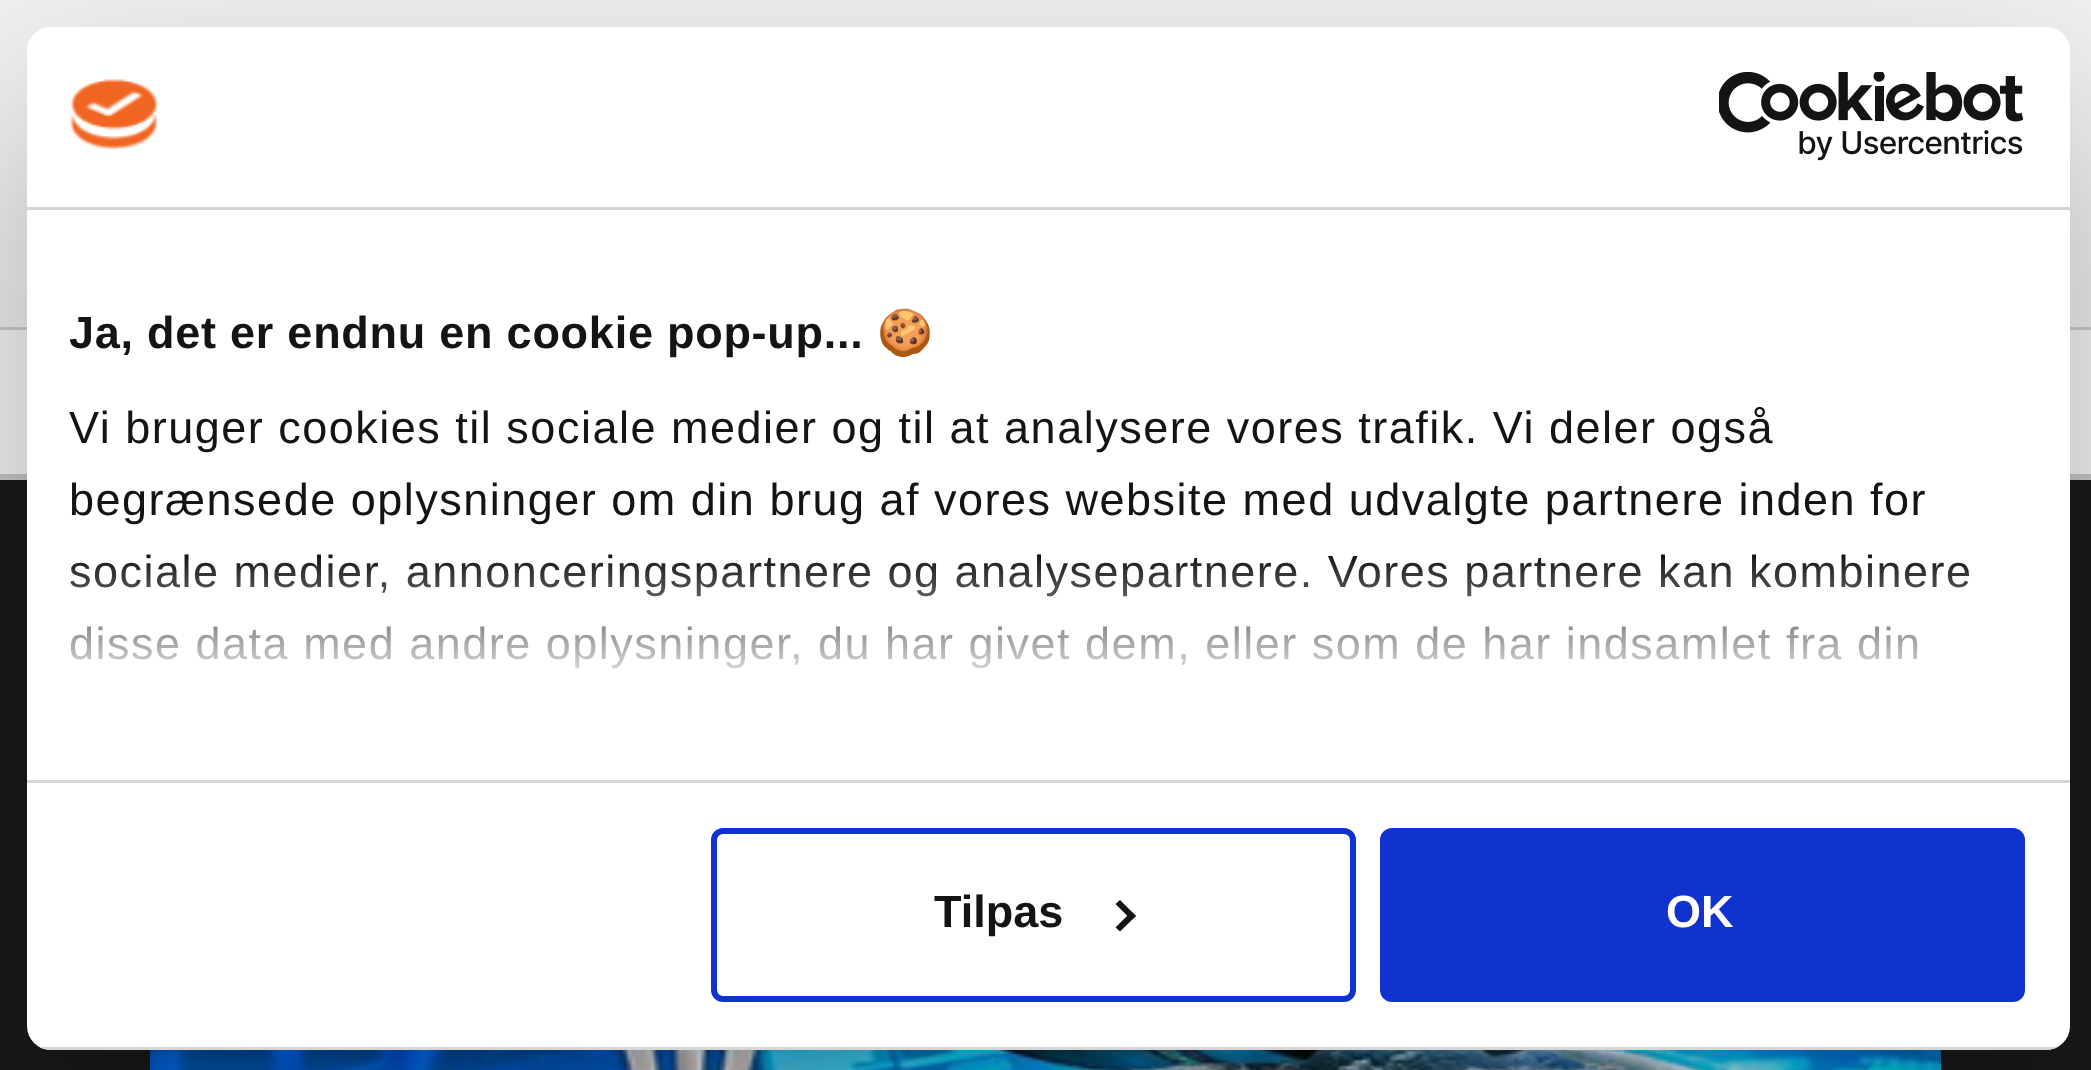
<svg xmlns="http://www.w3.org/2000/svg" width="2091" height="1070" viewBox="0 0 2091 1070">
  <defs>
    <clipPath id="clip1"><path d="M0 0H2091V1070H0ZM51 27H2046C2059.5 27 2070 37.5 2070 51V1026C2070 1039.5 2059.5 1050 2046 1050H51C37.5 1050 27 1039.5 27 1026V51C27 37.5 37.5 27 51 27Z" clip-rule="evenodd"/></clipPath>
    <clipPath id="clip2"><rect x="27" y="27" width="2043" height="1023" rx="24"/></clipPath>
    <linearGradient id="g1" gradientUnits="userSpaceOnUse" x1="1028" y1="779" x2="1028" y2="554"><stop offset="0" stop-color="#fff"/><stop offset="0.5" stop-color="#fff" stop-opacity="0.8"/><stop offset="1" stop-color="#fff" stop-opacity="0"/></linearGradient>
  </defs>
  <rect width="100%" height="100%" fill="#1a1a1b"/>
  <path d="M0 330h2091v144H0z" fill="#f7f7f7"/>
  <path d="M0 0h2091v327H0z" fill="#f1f1f1"/>
  <path d="M0 327h2091v3H0z" fill="#cecece"/>
  <path d="M0 474h2091v6H0z" fill="#cacaca"/>
  <image x="150" y="1050" width="1791" height="20" href="img/1.png"/>
  <g clip-path="url(#clip1)">
    <rect x="27" y="123" width="2043" height="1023" rx="24" fill="#0000004d" filter="blur(102px)"/>
  </g>
  <rect x="27" y="27" width="2043" height="1023" rx="24" fill="#fff"/>
  <path d="M27 207h2043v3H27z" fill="#d6d6d6"/>
  <image x="69" y="79" width="90" height="70" href="img/2.png"/>
  <image x="1719" y="72" width="305" height="89" href="img/3.png"/>
  <path d="M27 780h2043v3H27z" fill="#d6d6d6"/>
  <g clip-path="url(#clip2)">
    <path d="M39 1047h2019v3H39z" fill="#d6d6d6"/>
  </g>
  <rect x="714" y="831" width="639" height="168" rx="9" fill="none" stroke="#1032cf" stroke-width="6"/>
  <path d="M1120 900L1136 916L1131.5 920L1115.5 904Z" fill="#141414"/>
  <path d="M1131.5 911.5L1136 916L1120 931.5L1115.5 927.5Z" fill="#141414"/>
  <rect x="1383" y="831" width="639" height="168" rx="9" fill="#1032cf" stroke="#1032cf" stroke-width="6"/>
  <text x="69" y="348" font-family="Liberation Sans" font-size="45" font-weight="bold" letter-spacing="0.75" fill="#141414">Ja, det er endnu en cookie pop-up...</text>
  <text x="877" y="348" font-family="Noto Color Emoji" font-size="45" font-weight="bold" letter-spacing="0.75" fill="#141414">🍪</text>
  <g font-family="Liberation Sans" font-size="45" letter-spacing="1.5" fill="#141414">
    <text x="69" y="443">Vi bruger cookies til sociale medier og til at analysere vores trafik. Vi deler også</text>
    <text x="69" y="515">begrænsede oplysninger om din brug af vores website med udvalgte partnere inden for</text>
    <text x="69" y="587">sociale medier, annonceringspartnere og analysepartnere. Vores partnere kan kombinere</text>
    <text x="69" y="659">disse data med andre oplysninger, du har givet dem, eller som de har indsamlet fra din</text>
  </g>
  <path d="M70 557h1899v112H70z" fill="url(#g1)"/>
  <text x="934" y="927" font-family="Liberation Sans" font-size="45" font-weight="bold" fill="#141414">Tilpas</text>
  <text x="1666" y="927" font-family="Liberation Sans" font-size="45" font-weight="bold" fill="#fff">OK</text>
</svg>
